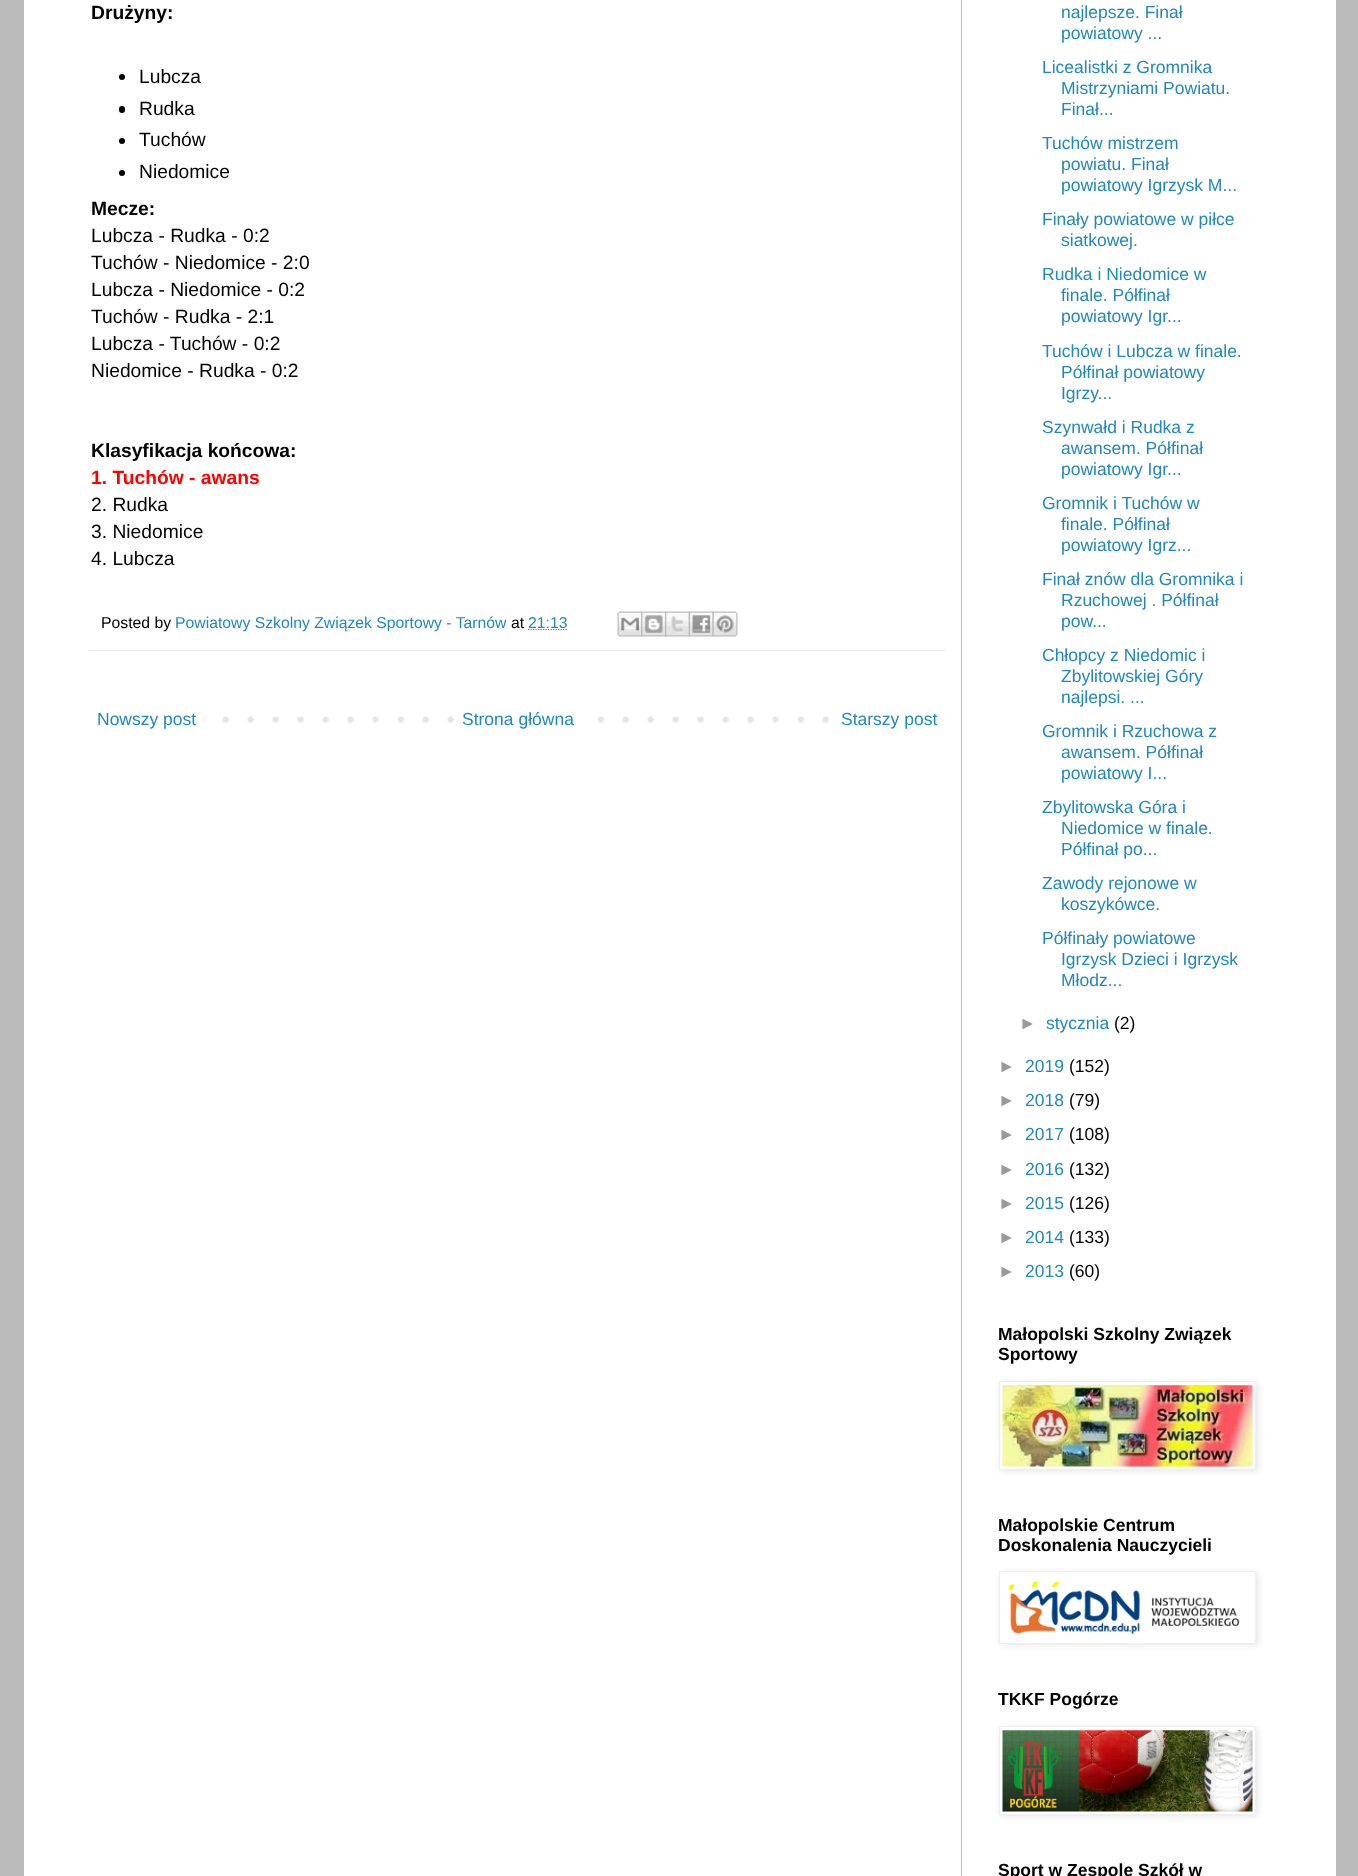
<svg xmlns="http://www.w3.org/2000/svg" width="1358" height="1876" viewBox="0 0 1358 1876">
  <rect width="100%" height="100%" fill="#bbb"/>
  <path d="M24 0h1312v1876H24z" fill="#fff"/>
  <path d="M961 0h1v1876H961z" fill="#bbb"/>
  <circle cx="122" cy="77" r="3" fill="#000"/>
  <rect x="119" y="106" width="6" height="7" rx="3" fill="#000"/>
  <circle cx="122" cy="141" r="3" fill="#000"/>
  <circle cx="122" cy="173" r="3" fill="#000"/>
  <path d="M89 650h857v1H89z" fill="#eee"/>
  <path d="M528 629.5H567.5" fill="none" stroke="#28b" stroke-width="1.2" stroke-dasharray="1.25 1.25"/>
  <image x="617" y="611" width="26" height="26" href="img/1.png"/>
  <image x="641" y="611" width="26" height="26" href="img/2.png"/>
  <image x="665" y="611" width="25" height="26" href="img/3.png"/>
  <image x="688" y="611" width="26" height="26" href="img/4.png"/>
  <image x="712" y="611" width="26" height="26" href="img/5.png"/>
  <image x="203" y="716" width="626" height="7" href="img/6.png"/>
  <path d="M472 716h108v7H472z" fill="#fff"/>
  <path d="M1000 1383h258v88H1000z" fill="#0000001a" filter="blur(3px)"/>
  <path d="M999.5 1381.5h256v88H999.5z" fill="#fff" stroke="#eee"/>
  <image x="1002" y="1385" width="251" height="82" href="img/7.png"/>
  <path d="M1000 1573h258v72H1000z" fill="#0000001a" filter="blur(3px)"/>
  <path d="M999.5 1571.5h256v72H999.5z" fill="#fff" stroke="#eee"/>
  <image x="1008" y="1580" width="232" height="54" href="img/8.png"/>
  <path d="M1000 1728h258v88H1000z" fill="#0000001a" filter="blur(3px)"/>
  <path d="M999.5 1726.5h256v88H999.5z" fill="#fff" stroke="#eee"/>
  <image x="1002" y="1730" width="251" height="82" href="img/9.png"/>
  <text x="91" y="19" font-family="Liberation Sans" font-size="19.25" font-weight="bold" fill="#000">Drużyny:</text>
  <g font-family="Liberation Sans" font-size="19.25" fill="#000">
    <text x="139" y="83">Lubcza</text>
    <text x="139" y="115">Rudka</text>
    <text x="139" y="146">Tuchów</text>
    <text x="139" y="178">Niedomice</text>
  </g>
  <text x="91" y="215" font-family="Liberation Sans" font-size="19.25" font-weight="bold" fill="#000">Mecze:</text>
  <g font-family="Liberation Sans" font-size="19.25" fill="#000">
    <text x="91" y="242">Lubcza - Rudka - 0:2</text>
    <text x="91" y="269">Tuchów - Niedomice - 2:0</text>
    <text x="91" y="296">Lubcza - Niedomice - 0:2</text>
    <text x="91" y="323">Tuchów - Rudka - 2:1</text>
    <text x="91" y="350">Lubcza - Tuchów - 0:2</text>
    <text x="91" y="377">Niedomice - Rudka - 0:2</text>
  </g>
  <text x="91" y="457" font-family="Liberation Sans" font-size="19.25" font-weight="bold" fill="#000">Klasyfikacja końcowa:</text>
  <text x="91" y="484" font-family="Liberation Sans" font-size="19.25" font-weight="bold" fill="#f00">1. Tuchów - awans</text>
  <g font-family="Liberation Sans" font-size="19.25" fill="#000">
    <text x="91" y="511">2. Rudka</text>
    <text x="91" y="538">3. Niedomice</text>
    <text x="91" y="565">4. Lubcza</text>
  </g>
  <text x="101" y="628" font-family="Liberation Sans" font-size="15.75" fill="#000">Posted by</text>
  <text x="175" y="628" font-family="Liberation Sans" font-size="15.75" fill="#28b">Powiatowy Szkolny Związek Sportowy - Tarnów</text>
  <text x="511" y="628" font-family="Liberation Sans" font-size="15.75" fill="#000">at</text>
  <text x="528" y="628" font-family="Liberation Sans" font-size="15.75" fill="#28b">21:13</text>
  <g font-family="Liberation Sans" font-size="17.5" fill="#28b">
    <text x="97" y="725">Nowszy post</text>
    <text x="462" y="725">Strona główna</text>
    <text x="841" y="725">Starszy post</text>
    <text x="1061" y="18">najlepsze. Finał</text>
    <text x="1061" y="39">powiatowy ...</text>
    <text x="1042" y="73">Licealistki z Gromnika</text>
    <text x="1061" y="94">Mistrzyniami Powiatu.</text>
    <text x="1061" y="115">Finał...</text>
    <text x="1042" y="149">Tuchów mistrzem</text>
    <text x="1061" y="170">powiatu. Finał</text>
    <text x="1061" y="191">powiatowy Igrzysk M...</text>
    <text x="1042" y="225">Finały powiatowe w piłce</text>
    <text x="1061" y="246">siatkowej.</text>
    <text x="1042" y="280">Rudka i Niedomice w</text>
    <text x="1061" y="301">finale. Półfinał</text>
    <text x="1061" y="322">powiatowy Igr...</text>
    <text x="1042" y="357">Tuchów i Lubcza w finale.</text>
    <text x="1061" y="378">Półfinał powiatowy</text>
    <text x="1061" y="399">Igrzy...</text>
    <text x="1042" y="433">Szynwałd i Rudka z</text>
    <text x="1061" y="454">awansem. Półfinał</text>
    <text x="1061" y="475">powiatowy Igr...</text>
    <text x="1042" y="509">Gromnik i Tuchów w</text>
    <text x="1061" y="530">finale. Półfinał</text>
    <text x="1061" y="551">powiatowy Igrz...</text>
    <text x="1042" y="585">Finał znów dla Gromnika i</text>
    <text x="1061" y="606">Rzuchowej . Półfinał</text>
    <text x="1061" y="627">pow...</text>
    <text x="1042" y="661">Chłopcy z Niedomic i</text>
    <text x="1061" y="682">Zbylitowskiej Góry</text>
    <text x="1061" y="703">najlepsi. ...</text>
    <text x="1042" y="737">Gromnik i Rzuchowa z</text>
    <text x="1061" y="758">awansem. Półfinał</text>
    <text x="1061" y="779">powiatowy I...</text>
    <text x="1042" y="813">Zbylitowska Góra i</text>
    <text x="1061" y="834">Niedomice w finale.</text>
    <text x="1061" y="855">Półfinał po...</text>
    <text x="1042" y="889">Zawody rejonowe w</text>
    <text x="1061" y="910">koszykówce.</text>
    <text x="1042" y="944">Półfinały powiatowe</text>
    <text x="1061" y="965">Igrzysk Dzieci i Igrzysk</text>
    <text x="1061" y="986">Młodz...</text>
  </g>
  <text x="1019" y="1029" font-family="Liberation Sans" font-size="17.5" fill="#999">►</text>
  <text x="1046" y="1029" font-family="Liberation Sans" font-size="17.5" fill="#28b">stycznia</text>
  <text x="1114" y="1029" font-family="Liberation Sans" font-size="17.5" fill="#000">(2)</text>
  <text x="998" y="1072" font-family="Liberation Sans" font-size="17.5" fill="#999">►</text>
  <text x="1025" y="1072" font-family="Liberation Sans" font-size="17.5" fill="#28b">2019</text>
  <text x="1069" y="1072" font-family="Liberation Sans" font-size="17.5" fill="#000">(152)</text>
  <text x="998" y="1106" font-family="Liberation Sans" font-size="17.5" fill="#999">►</text>
  <text x="1025" y="1106" font-family="Liberation Sans" font-size="17.5" fill="#28b">2018</text>
  <text x="1069" y="1106" font-family="Liberation Sans" font-size="17.5" fill="#000">(79)</text>
  <text x="998" y="1140" font-family="Liberation Sans" font-size="17.5" fill="#999">►</text>
  <text x="1025" y="1140" font-family="Liberation Sans" font-size="17.5" fill="#28b">2017</text>
  <text x="1069" y="1140" font-family="Liberation Sans" font-size="17.5" fill="#000">(108)</text>
  <text x="998" y="1175" font-family="Liberation Sans" font-size="17.5" fill="#999">►</text>
  <text x="1025" y="1175" font-family="Liberation Sans" font-size="17.5" fill="#28b">2016</text>
  <text x="1069" y="1175" font-family="Liberation Sans" font-size="17.5" fill="#000">(132)</text>
  <text x="998" y="1209" font-family="Liberation Sans" font-size="17.5" fill="#999">►</text>
  <text x="1025" y="1209" font-family="Liberation Sans" font-size="17.5" fill="#28b">2015</text>
  <text x="1069" y="1209" font-family="Liberation Sans" font-size="17.5" fill="#000">(126)</text>
  <text x="998" y="1243" font-family="Liberation Sans" font-size="17.5" fill="#999">►</text>
  <text x="1025" y="1243" font-family="Liberation Sans" font-size="17.5" fill="#28b">2014</text>
  <text x="1069" y="1243" font-family="Liberation Sans" font-size="17.5" fill="#000">(133)</text>
  <text x="998" y="1277" font-family="Liberation Sans" font-size="17.5" fill="#999">►</text>
  <text x="1025" y="1277" font-family="Liberation Sans" font-size="17.5" fill="#28b">2013</text>
  <text x="1069" y="1277" font-family="Liberation Sans" font-size="17.5" fill="#000">(60)</text>
  <g font-family="Liberation Sans" font-size="17.5" font-weight="bold" fill="#000">
    <text x="998" y="1340">Małopolski Szkolny Związek</text>
    <text x="998" y="1360">Sportowy</text>
    <text x="998" y="1531">Małopolskie Centrum</text>
    <text x="998" y="1551">Doskonalenia Nauczycieli</text>
    <text x="998" y="1705">TKKF Pogórze</text>
    <text x="998" y="1876">Sport w Zespole Szkół w</text>
  </g>
</svg>
